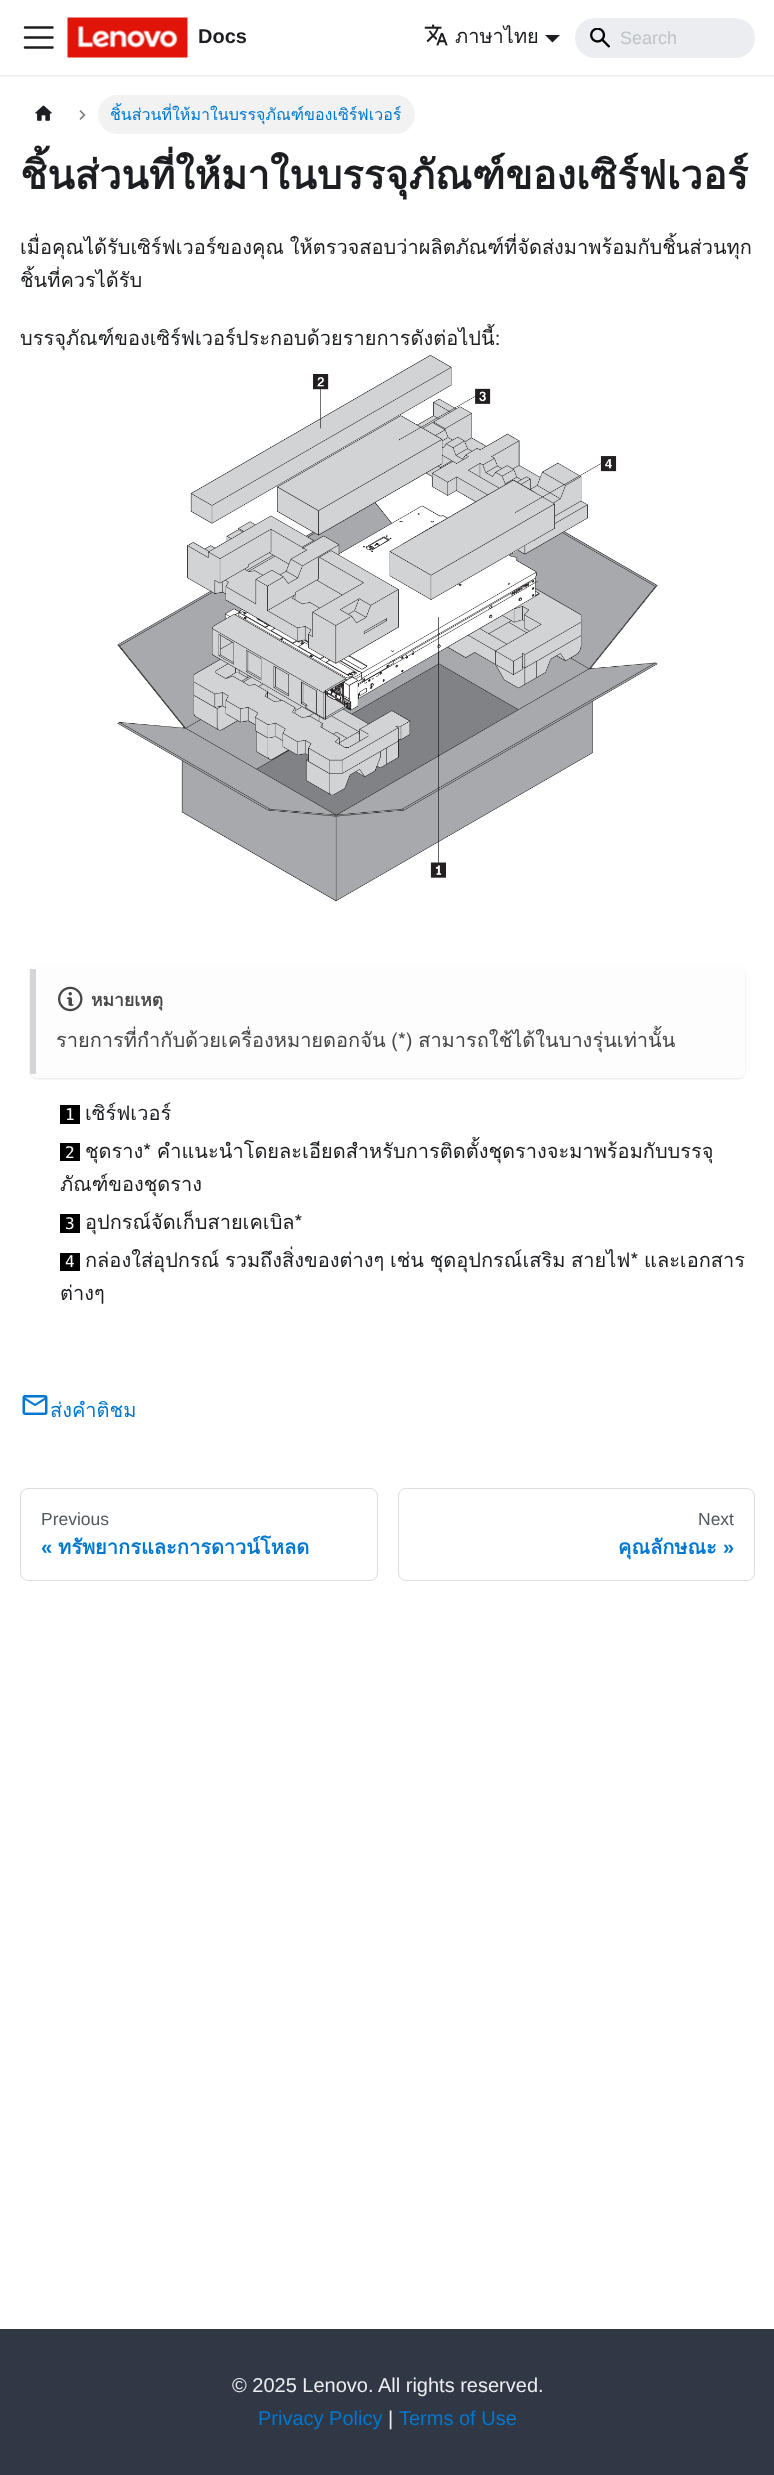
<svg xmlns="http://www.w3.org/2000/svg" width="774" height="2475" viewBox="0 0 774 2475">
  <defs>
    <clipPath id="clip1"><path d="M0 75h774v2H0z"/></clipPath>
    <clipPath id="clip2"><path d="M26 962H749V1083H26ZM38 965H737C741.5 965 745 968.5 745 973V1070C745 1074.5 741.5 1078 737 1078H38C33.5 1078 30 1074.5 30 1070V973C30 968.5 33.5 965 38 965Z" clip-rule="evenodd"/></clipPath>
  </defs>
  <rect width="100%" height="100%" fill="#fff"/>
  <g clip-path="url(#clip1)">
    <path d="M0 1h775v75H0z" fill="#0000001a" filter="blur(1px)"/>
  </g>
  <path d="M25 27.5H52.5M25 37.5H52.5M25 47.5H52.5" fill="none" stroke="#1c1e21" stroke-width="2.5" stroke-linecap="round"/>
  <image x="67" y="17" width="121" height="41" href="img/1.png"/>
  <image x="424" y="24" width="24" height="22" href="img/2.png"/>
  <path d="M545 35H560L552.5 42.5Z" fill="#1c1e21"/>
  <rect x="575" y="18" width="180" height="40" rx="20" fill="#ebedf0"/>
  <image x="590" y="28" width="20" height="20" href="img/3.png"/>
  <image x="35" y="105" width="17" height="16" href="img/4.png"/>
  <image x="79" y="110" width="7" height="10" href="img/5.png"/>
  <rect x="98" y="95" width="317" height="39" rx="19.5" fill="#f2f2f2"/>
  <image x="117" y="355" width="541" height="547" href="img/6.png"/>
  <g clip-path="url(#clip2)">
    <rect x="30" y="966" width="715" height="113" rx="8" fill="#0000001a" filter="blur(1px)"/>
  </g>
  <path d="M38 965H737C741 965 745 969 745 973V1070C745 1074 741 1078 737 1078H38C37 1078 36 1074 36 1070V973C36 969 37 965 38 965Z" fill="#fdfdfe"/>
  <path d="M30 969h6v105H30z" fill="#d4d5d8"/>
  <image x="58" y="986" width="25" height="26" href="img/7.png"/>
  <path d="M60 1105h20v19H60z" fill="#000"/>
  <path d="M60 1143h20v18H60z" fill="#000"/>
  <path d="M60 1214h20v19H60z" fill="#000"/>
  <path d="M60 1253h20v18H60z" fill="#000"/>
  <rect x="20.5" y="1488.5" width="357" height="92" rx="7.5" fill="none" stroke="#dadde1"/>
  <rect x="398.5" y="1488.5" width="356" height="92" rx="7.5" fill="none" stroke="#dadde1"/>
  <path d="M0 2329h774v146H0z" fill="#303846"/>
  <text x="198" y="43" font-family="Liberation Sans" font-size="20" font-weight="bold" fill="#1c1e21">Docs</text>
  <text x="455" y="43" font-family="Loma" font-size="20" fill="#1c1e21">ภาษาไทย</text>
  <text x="620" y="44" font-family="Liberation Sans" font-size="18" fill="#bec3c9">Search</text>
  <text x="110" y="120" font-family="Loma" font-size="16" fill="#0078d0">ชิ้นส่วนที่ให้มาในบรรจุภัณฑ์ของเซิร์ฟเวอร์</text>
  <text x="20" y="189" font-family="Loma" font-size="40" font-weight="bold" fill="#1c1e21">ชิ้นส่วนที่ให้มาในบรรจุภัณฑ์ของเซิร์ฟเวอร์</text>
  <g font-family="Loma" font-size="20" fill="#1c1e21">
    <text x="20" y="254" word-spacing="-1">เมื่อคุณได้รับเซิร์ฟเวอร์ของคุณ ให้ตรวจสอบว่าผลิตภัณฑ์ที่จัดส่งมาพร้อมกับชิ้นส่วนทุก</text>
    <text x="20" y="287">ชิ้นที่ควรได้รับ</text>
    <text x="20" y="345">บรรจุภัณฑ์ของเซิร์ฟเวอร์ประกอบด้วยรายการดังต่อไปนี้:</text>
  </g>
  <text x="91" y="1006" font-family="Loma" font-size="17.5" font-weight="bold" fill="#474748">หมายเหตุ</text>
  <text x="56" y="1047" word-spacing="-1" font-family="Loma" font-size="20" fill="#474748">รายการที่กำกับด้วยเครื่องหมายดอกจัน (*) สามารถใช้ได้ในบางรุ่นเท่านั้น</text>
  <text x="65" y="1120" font-family="DejaVu Sans Mono" font-size="16" fill="#fff">1</text>
  <text x="85" y="1120" font-family="Loma" font-size="20" fill="#1c1e21">เซิร์ฟเวอร์</text>
  <text x="65" y="1158" font-family="DejaVu Sans Mono" font-size="16" fill="#fff">2</text>
  <g font-family="Loma" font-size="20" fill="#1c1e21">
    <text x="85" y="1158" word-spacing="-1">ชุดราง* คำแนะนำโดยละเอียดสำหรับการติดตั้งชุดรางจะมาพร้อมกับบรรจุ</text>
    <text x="60" y="1191">ภัณฑ์ของชุดราง</text>
  </g>
  <text x="65" y="1229" font-family="DejaVu Sans Mono" font-size="16" fill="#fff">3</text>
  <text x="85" y="1229" font-family="Loma" font-size="20" fill="#1c1e21">อุปกรณ์จัดเก็บสายเคเบิล*</text>
  <text x="65" y="1267" font-family="DejaVu Sans Mono" font-size="16" fill="#fff">4</text>
  <g font-family="Loma" font-size="20" fill="#1c1e21">
    <text x="85" y="1267" word-spacing="-1">กล่องใส่อุปกรณ์ รวมถึงสิ่งของต่างๆ เช่น ชุดอุปกรณ์เสริม สายไฟ* และเอกสาร</text>
    <text x="60" y="1300">ต่างๆ</text>
  </g>
  <text x="50" y="1417" font-family="Loma" font-size="20" fill="#0078d0">ส่งคำติชม</text>
  <image x="22" y="1395" width="26" height="20" href="img/8.png"/>
  <text x="41" y="1525" font-family="Liberation Sans" font-size="17.5" fill="#525860">Previous</text>
  <text x="41" y="1554" font-family="Liberation Sans" font-size="20" font-weight="bold" fill="#0078d0">«</text>
  <text x="58" y="1554" font-family="Loma" font-size="20" font-weight="bold" fill="#0078d0">ทรัพยากรและการดาวน์โหลด</text>
  <text x="698" y="1525" font-family="Liberation Sans" font-size="17.5" fill="#525860">Next</text>
  <text x="618" y="1554" font-family="Loma" font-size="20" font-weight="bold" fill="#0078d0">คุณลักษณะ</text>
  <text x="723" y="1554" font-family="Liberation Sans" font-size="20" font-weight="bold" fill="#0078d0">»</text>
  <text x="232" y="2392" font-family="Liberation Sans" font-size="20" fill="#ebedf0">© 2025 Lenovo. All rights reserved.</text>
  <text x="258" y="2425" font-family="Liberation Sans" font-size="20" fill="#0078d0">Privacy Policy</text>
  <text x="388" y="2425" font-family="Liberation Sans" font-size="20" fill="#ebedf0">|</text>
  <text x="399" y="2425" font-family="Liberation Sans" font-size="20" fill="#0078d0">Terms of Use</text>
</svg>
